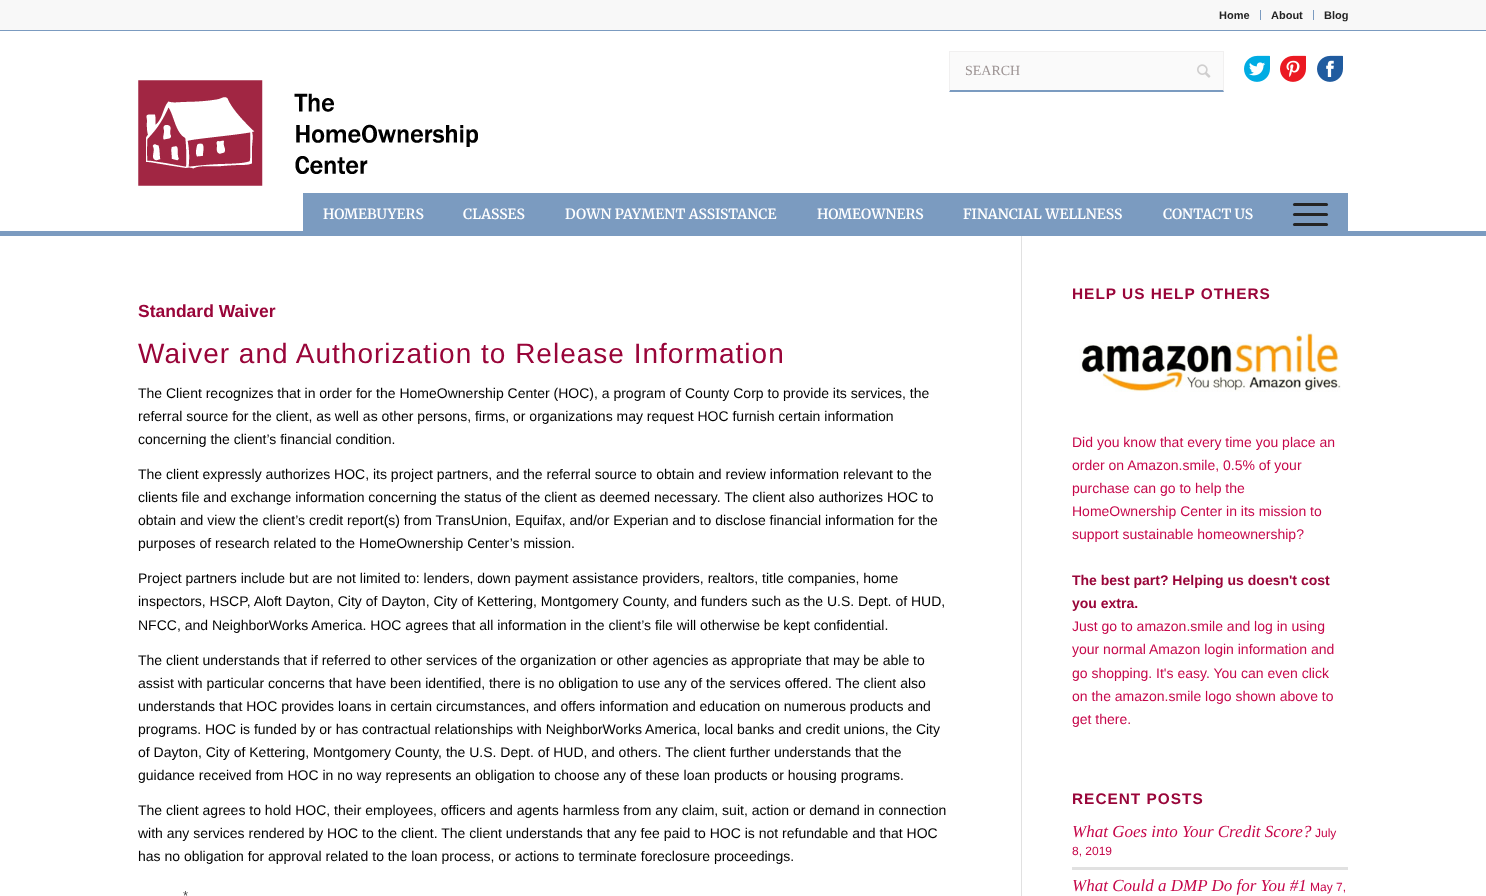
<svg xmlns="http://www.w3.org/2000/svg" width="1486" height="896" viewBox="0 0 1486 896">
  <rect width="100%" height="100%" fill="#fff"/>
  <path d="M0 0h1486v30H0z" fill="#f8f8f8"/>
  <path d="M0 30h1486v1H0z" fill="#7b9bc0"/>
  <path d="M1260 10h1v10H1260z" fill="#7b9bc0"/>
  <path d="M1313 10h1v10H1313z" fill="#7b9bc0"/>
  <path d="M0 231h1486v5H0z" fill="#7b9bc0"/>
  <path d="M950 52h273v38H950z" fill="#fafafa"/>
  <path d="M949 51h275v1H949z" fill="#f1f0f0"/>
  <path d="M1224 51V92L1223 90V52Z" fill="#f1f0f0"/>
  <path d="M1224 92H949L950 90H1223Z" fill="#7b9bc0"/>
  <path d="M949 92V51L950 52V90Z" fill="#f1f0f0"/>
  <image x="1197" y="64" width="14" height="14" href="img/1.png"/>
  <image x="1244" y="55" width="26" height="27" href="img/2.png"/>
  <image x="1280" y="55" width="26" height="27" href="img/3.png"/>
  <image x="1317" y="55" width="26" height="27" href="img/4.png"/>
  <image x="138" y="80" width="340" height="106" href="img/5.png"/>
  <path d="M303 193h1045v38H303z" fill="#7b9bc0"/>
  <rect x="1293" y="213" width="35" height="3" rx="1.5" fill="#242424"/>
  <rect x="1293" y="203" width="35" height="3" rx="1.5" fill="#242424"/>
  <rect x="1293" y="223" width="35" height="3" rx="1.5" fill="#242424"/>
  <path d="M1021 236h1v660H1021z" fill="#e1e1e1"/>
  <image x="1079" y="330" width="262" height="62" href="img/6.png"/>
  <path d="M1072 867h276v3H1072z" fill="#e1e1e1"/>
  <g font-family="Liberation Sans" font-size="11" font-weight="bold" fill="#242424">
    <text x="1219" y="19">Home</text>
    <text x="1271" y="19">About</text>
    <text x="1324" y="19">Blog</text>
  </g>
  <text x="965" y="75" font-family="Liberation Serif" font-size="14" fill="#9c9393">SEARCH</text>
  <g font-family="Merriweather" font-size="14" font-weight="600" fill="#fff">
    <text x="323" y="219">HOMEBUYERS</text>
    <text x="463" y="219">CLASSES</text>
    <text x="565" y="219">DOWN PAYMENT ASSISTANCE</text>
    <text x="817" y="219">HOMEOWNERS</text>
    <text x="963" y="219">FINANCIAL WELLNESS</text>
    <text x="1163" y="219">CONTACT US</text>
  </g>
  <text x="138" y="317" font-family="Liberation Sans" font-size="17.5" font-weight="bold" fill="#990539">Standard Waiver</text>
  <text x="138" y="363" font-family="Liberation Sans" font-size="28" letter-spacing="1" fill="#990539">Waiver and Authorization to Release Information</text>
  <g font-family="Liberation Sans" font-size="14" fill="#000">
    <text x="138" y="398">The Client recognizes that in order for the HomeOwnership Center (HOC), a program of County Corp to provide its services, the</text>
    <text x="138" y="421">referral source for the client, as well as other persons, firms, or organizations may request HOC furnish certain information</text>
    <text x="138" y="444">concerning the client’s financial condition.</text>
    <text x="138" y="479">The client expressly authorizes HOC, its project partners, and the referral source to obtain and review information relevant to the</text>
    <text x="138" y="502">clients file and exchange information concerning the status of the client as deemed necessary. The client also authorizes HOC to</text>
    <text x="138" y="525">obtain and view the client’s credit report(s) from TransUnion, Equifax, and/or Experian and to disclose financial information for the</text>
    <text x="138" y="548">purposes of research related to the HomeOwnership Center’s mission.</text>
    <text x="138" y="583">Project partners include but are not limited to: lenders, down payment assistance providers, realtors, title companies, home</text>
    <text x="138" y="606">inspectors, HSCP, Aloft Dayton, City of Dayton, City of Kettering, Montgomery County, and funders such as the U.S. Dept. of HUD,</text>
    <text x="138" y="630">NFCC, and NeighborWorks America. HOC agrees that all information in the client’s file will otherwise be kept confidential.</text>
    <text x="138" y="665">The client understands that if referred to other services of the organization or other agencies as appropriate that may be able to</text>
    <text x="138" y="688">assist with particular concerns that have been identified, there is no obligation to use any of the services offered. The client also</text>
    <text x="138" y="711">understands that HOC provides loans in certain circumstances, and offers information and education on numerous products and</text>
    <text x="138" y="734">programs. HOC is funded by or has contractual relationships with NeighborWorks America, local banks and credit unions, the City</text>
    <text x="138" y="757">of Dayton, City of Kettering, Montgomery County, the U.S. Dept. of HUD, and others. The client further understands that the</text>
    <text x="138" y="780">guidance received from HOC in no way represents an obligation to choose any of these loan products or housing programs.</text>
    <text x="138" y="815">The client agrees to hold HOC, their employees, officers and agents harmless from any claim, suit, action or demand in connection</text>
    <text x="138" y="838">with any services rendered by HOC to the client. The client understands that any fee paid to HOC is not refundable and that HOC</text>
    <text x="138" y="861">has no obligation for approval related to the loan process, or actions to terminate foreclosure proceedings.</text>
  </g>
  <text x="183" y="900" font-family="Liberation Sans" font-size="13" fill="#444">*</text>
  <text x="1072" y="299" font-family="Liberation Sans" font-size="15.4" font-weight="bold" letter-spacing="1" fill="#990539">HELP US HELP OTHERS</text>
  <g font-family="Liberation Sans" font-size="14" fill="#c6074a">
    <text x="1072" y="447">Did you know that every time you place an</text>
    <text x="1072" y="470">order on Amazon.smile, 0.5% of your</text>
    <text x="1072" y="493">purchase can go to help the</text>
    <text x="1072" y="516">HomeOwnership Center in its mission to</text>
    <text x="1072" y="539">support sustainable homeownership?</text>
  </g>
  <g font-family="Liberation Sans" font-size="14" font-weight="bold" fill="#990539">
    <text x="1072" y="585">The best part? Helping us doesn't cost</text>
    <text x="1072" y="608">you extra.</text>
  </g>
  <g font-family="Liberation Sans" font-size="14" fill="#c6074a">
    <text x="1072" y="631">Just go to amazon.smile and log in using</text>
    <text x="1072" y="654">your normal Amazon login information and</text>
    <text x="1072" y="678">go shopping. It's easy. You can even click</text>
    <text x="1072" y="701">on the amazon.smile logo shown above to</text>
    <text x="1072" y="724">get there.</text>
  </g>
  <text x="1072" y="804" font-family="Liberation Sans" font-size="15.4" font-weight="bold" letter-spacing="1" fill="#990539">RECENT POSTS</text>
  <text x="1072" y="837" font-family="Liberation Serif" font-size="17" font-style="italic" fill="#c6074a">What Goes into Your Credit Score?</text>
  <g font-family="Liberation Sans" font-size="12" fill="#c6074a">
    <text x="1315" y="837">July</text>
    <text x="1072" y="855">8, 2019</text>
  </g>
  <text x="1072" y="891" font-family="Liberation Serif" font-size="17" font-style="italic" fill="#c6074a">What Could a DMP Do for You #1</text>
  <text x="1310" y="891" font-family="Liberation Sans" font-size="12" fill="#c6074a">May 7,</text>
</svg>
